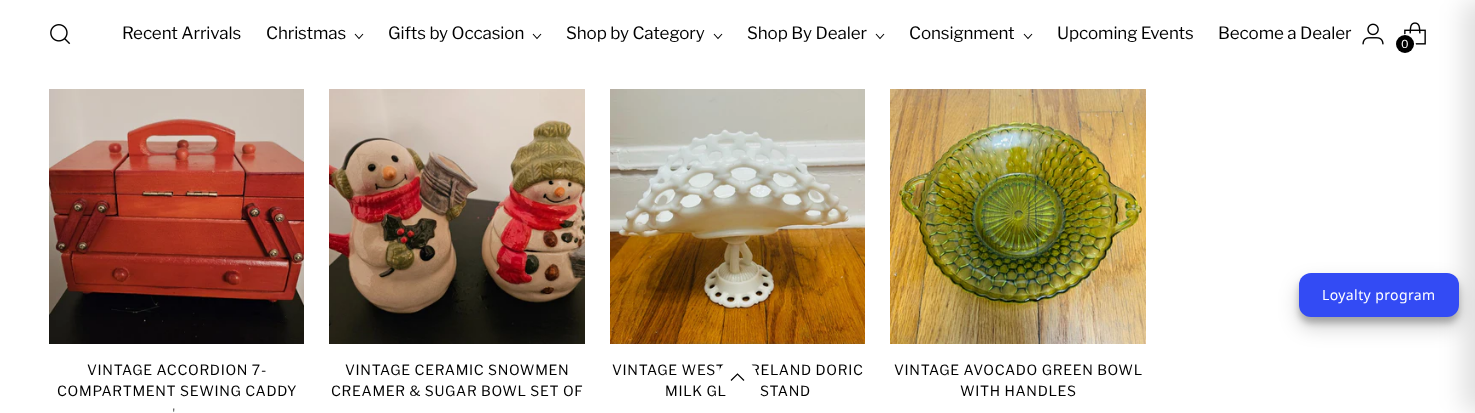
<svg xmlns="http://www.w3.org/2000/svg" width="1475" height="413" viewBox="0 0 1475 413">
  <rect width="100%" height="100%" fill="#fff"/>
  <image x="50" y="24" width="21" height="21" href="img/1.png"/>
  <path d="M355 34L359 38.5L363 34" fill="none" stroke="#000" stroke-width="1.1"/>
  <path d="M533 34L537 38.5L541 34" fill="none" stroke="#000" stroke-width="1.1"/>
  <path d="M714 34L718 38.5L722 34" fill="none" stroke="#000" stroke-width="1.1"/>
  <path d="M876 34L880 38.5L884 34" fill="none" stroke="#000" stroke-width="1.1"/>
  <path d="M1024 34L1028 38.5L1032 34" fill="none" stroke="#000" stroke-width="1.1"/>
  <image x="1362" y="23" width="22" height="22" href="img/2.png"/>
  <image x="1404" y="22" width="22" height="23" href="img/3.png"/>
  <circle cx="1405.5" cy="44.5" r="9.5" fill="none" stroke="#fff" stroke-width="2"/>
  <circle cx="1405" cy="44" r="9" fill="#000"/>
  <image x="49" y="89" width="255" height="255" href="img/4.png"/>
  <image x="329" y="89" width="256" height="255" href="img/5.png"/>
  <image x="610" y="89" width="255" height="255" href="img/6.png"/>
  <image x="890" y="89" width="256" height="255" href="img/7.png"/>
  <rect x="1299" y="279" width="160" height="44" rx="12" fill="#0000003b" filter="blur(3px)"/>
  <rect x="1299" y="283" width="160" height="44" rx="12" fill="#00000030" filter="blur(10px)"/>
  <rect x="1463" width="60" height="413" rx="12" fill="#0000001f" filter="blur(12px)"/>
  <rect x="1299" y="273" width="160" height="44" rx="12" fill="#334bf4"/>
  <g font-family="Libre Franklin" font-size="17" letter-spacing="-0.1" fill="#000">
    <text x="122" y="39">Recent Arrivals</text>
    <text x="266" y="39">Christmas</text>
    <text x="388" y="39">Gifts by Occasion</text>
    <text x="566" y="39">Shop by Category</text>
    <text x="747" y="39">Shop By Dealer</text>
    <text x="909" y="39">Consignment</text>
    <text x="1057" y="39">Upcoming Events</text>
    <text x="1218" y="39">Become a Dealer</text>
  </g>
  <text x="1401" y="48" font-family="Libre Franklin" font-size="11" letter-spacing="0.4" fill="#fff">0</text>
  <g font-family="Libre Franklin" font-size="14" letter-spacing="0.7" fill="#000">
    <text x="87" y="375">VINTAGE ACCORDION 7-</text>
    <text x="57" y="396">COMPARTMENT SEWING CADDY</text>
  </g>
  <text x="172" y="419" font-family="Libre Franklin" font-size="14" fill="#666">'</text>
  <g font-family="Libre Franklin" font-size="14" letter-spacing="0.7" fill="#000">
    <text x="345" y="375">VINTAGE CERAMIC SNOWMEN</text>
    <text x="331" y="396">CREAMER &amp; SUGAR BOWL SET OF</text>
    <text x="612" y="375">VINTAGE WEST</text>
    <text x="750" y="375">RELAND DORIC</text>
    <text x="665" y="396">MILK GL</text>
  </g>
  <circle cx="737.5" cy="377.5" r="19.5" fill="#fff"/>
  <path d="M744 380.5L737.5 374L731 380.5" fill="none" stroke="#000" stroke-width="1.2"/>
  <g font-family="Libre Franklin" font-size="14" letter-spacing="0.7" fill="#000">
    <text x="760" y="396">STAND</text>
    <text x="894" y="375">VINTAGE AVOCADO GREEN BOWL</text>
    <text x="960" y="396">WITH HANDLES</text>
  </g>
  <text x="1322" y="300" font-family="Noto Sans" font-size="14" letter-spacing="0.4" fill="#fff">Loyalty program</text>
</svg>
